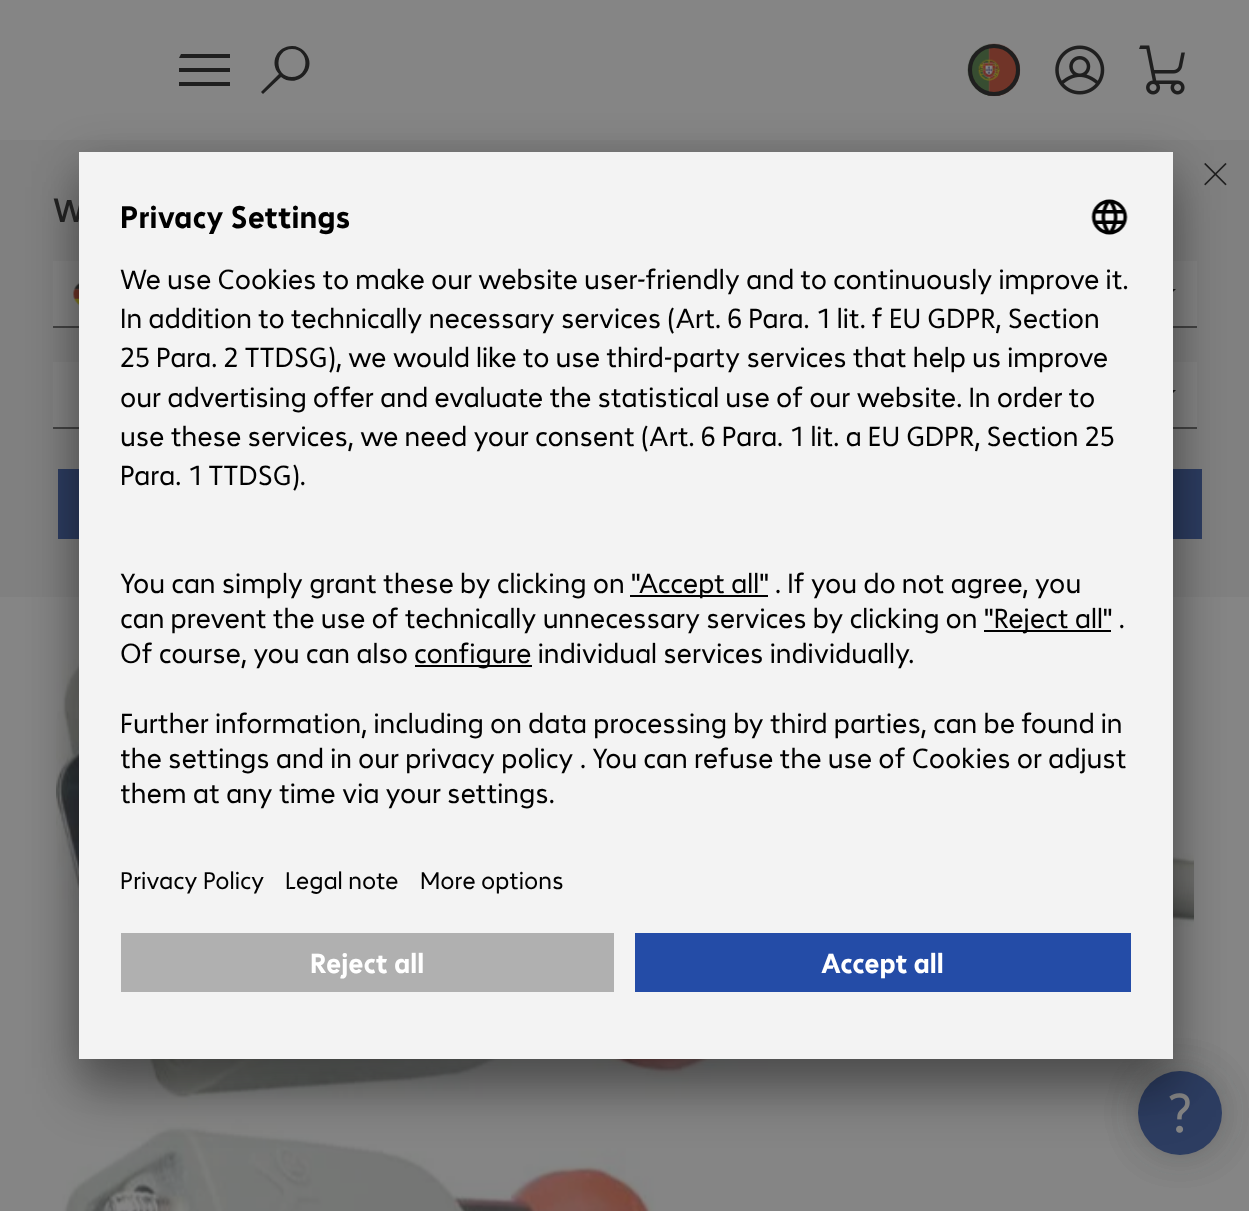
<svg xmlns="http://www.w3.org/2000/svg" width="1249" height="1211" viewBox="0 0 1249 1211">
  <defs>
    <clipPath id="clip1"><path d="M121 252h1010v565H121z"/></clipPath>
  </defs>
  <rect width="100%" height="100%" fill="#858585"/>
  <path d="M179 82h51v4H179z" fill="#1f1f1f"/>
  <path d="M179 68h51v4H179z" fill="#1f1f1f"/>
  <path d="M181 54H230V58H179Z" fill="#1f1f1f"/>
  <path d="M292 46C277 46 269 63 279 74L261 92L263 94L281 77C298 90 320 67 304 51C301 48 297 46 292 46ZM292 77C274 77 274 49 292 49C310 49 310 77 292 77Z" fill="#1f1f1f"/>
  <image x="967" y="43" width="54" height="54" href="img/1.png"/>
  <circle cx="994" cy="70" r="24" fill="none" stroke="#1f1f1f" stroke-width="4"/>
  <image x="1055" y="45" width="50" height="50" href="img/2.png"/>
  <image x="1139" y="45" width="46" height="50" href="img/3.png"/>
  <path d="M0 140h1249v457H0z" fill="#808080"/>
  <image x="1204" y="163" width="23" height="23" href="img/4.png"/>
  <path d="M53 261h1144v65H53z" fill="#858585"/>
  <path d="M53 326h1144v2H53z" fill="#434343"/>
  <image x="73" y="282" width="6" height="24" href="img/5.png"/>
  <path d="M1158.5 289H1176L1167 297.5Z" fill="#1f1f1f"/>
  <path d="M53 362h1144v65H53z" fill="#858585"/>
  <path d="M53 427h1144v2H53z" fill="#434343"/>
  <path d="M1158.5 390H1176L1167 399Z" fill="#1f1f1f"/>
  <path d="M58 469h1144v70H58z" fill="#2d3d61"/>
  <image x="56" y="611" width="1138" height="600" href="img/6.png"/>
  <rect x="1138" y="1071" width="84" height="84" rx="42" fill="#1f252329" filter="blur(17.5px)"/>
  <rect x="1138" y="1071" width="84" height="84" rx="42" fill="#1f252329" filter="blur(17.5px)"/>
  <circle cx="1180" cy="1113" r="42" fill="#2d3d61"/>
  <image x="1169" y="1093" width="21" height="40" href="img/7.png"/>
  <path d="M79 187h1094v907H79z" fill="#0000004d" filter="blur(24.5px)"/>
  <path d="M79 161h1094v907H79z" fill="#00000038" filter="blur(23px)"/>
  <text x="53" y="222" font-family="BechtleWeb" font-size="34" font-weight="500" fill="#1f1f1f">W</text>
  <path d="M79 152h1094v907H79z" fill="#f3f3f3"/>
  <text x="120" y="228" font-family="BechtleWeb" font-size="31.5" font-weight="bold" fill="#000">Privacy Settings</text>
  <image x="1091" y="199" width="37" height="36" href="img/8.png"/>
  <g font-family="BechtleWeb" font-size="28" fill="#000">
    <text x="120" y="289">We use Cookies to make our website user-friendly and to continuously improve it.</text>
    <text x="120" y="328">In addition to technically necessary services (Art. 6 Para. 1 lit. f EU GDPR, Section</text>
    <text x="120" y="367">25 Para. 2 TTDSG), we would like to use third-party services that help us improve</text>
    <text x="120" y="407">our advertising offer and evaluate the statistical use of our website. In order to</text>
    <text x="120" y="446">use these services, we need your consent (Art. 6 Para. 1 lit. a EU GDPR, Section 25</text>
    <text x="120" y="485">Para. 1 TTDSG).</text>
    <text x="120" y="593">You can simply grant these by clicking on</text>
  </g>
  <path d="M630 595h138v2H630z" fill="#000"/>
  <g font-family="BechtleWeb" font-size="28" fill="#000">
    <text x="631" y="593">"Accept all" . If you do not agree, you</text>
    <text x="120" y="628">can prevent the use of technically unnecessary services by clicking on</text>
  </g>
  <path d="M984 630h127v2H984z" fill="#000"/>
  <g font-family="BechtleWeb" font-size="28" fill="#000">
    <text x="984" y="628">"Reject all" .</text>
    <text x="120" y="663">Of course, you can also</text>
  </g>
  <path d="M415 665h117v2H415z" fill="#000"/>
  <g font-family="BechtleWeb" font-size="28" fill="#000">
    <text x="414" y="663">configure individual services individually.</text>
    <text x="120" y="733">Further information, including on data processing by third parties, can be found in</text>
  </g>
  <g clip-path="url(#clip1)">
    <text x="120" y="768" font-family="BechtleWeb" font-size="28" fill="#000">the settings and in our privacy policy</text>
  </g>
  <text x="580" y="768" font-family="BechtleWeb" font-size="28" fill="#000">. You can refuse the use of Cookies or adjust</text>
  <g clip-path="url(#clip1)">
    <text x="120" y="803" font-family="BechtleWeb" font-size="28" fill="#000">them at any time via your settings.</text>
  </g>
  <g font-family="BechtleWeb" font-size="24.5" fill="#000">
    <text x="120" y="889">Privacy Policy</text>
    <text x="285" y="889">Legal note</text>
    <text x="420" y="889">More options</text>
  </g>
  <path d="M121 933h493v59H121z" fill="#b0b0b0"/>
  <text x="310" y="973" font-family="BechtleWeb" font-size="28" font-weight="bold" fill="#fff">Reject all</text>
  <path d="M635 933h496v59H635z" fill="#244ca7"/>
  <text x="821" y="973" font-family="BechtleWeb" font-size="28" font-weight="bold" fill="#fff">Accept all</text>
</svg>
